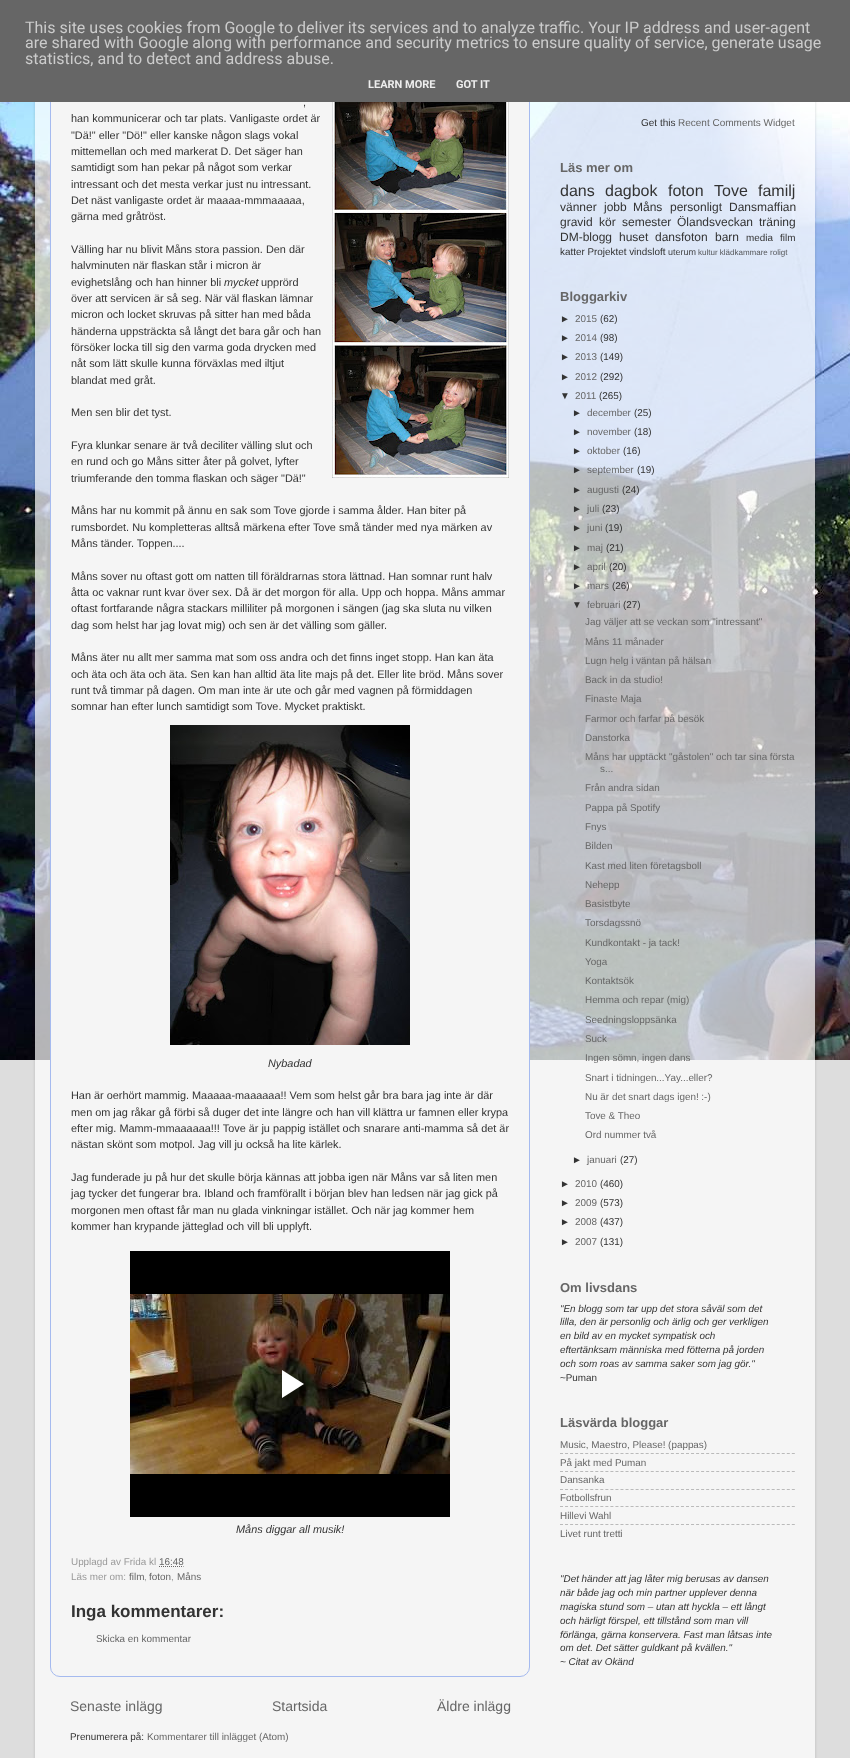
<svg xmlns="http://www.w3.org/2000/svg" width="850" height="1758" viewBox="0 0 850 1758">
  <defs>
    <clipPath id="clip1"><path d="M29 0H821V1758H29ZM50-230H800C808.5-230 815-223.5 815-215V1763C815 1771.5 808.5 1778 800 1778H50C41.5 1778 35 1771.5 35 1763V-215C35-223.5 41.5-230 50-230Z" clip-rule="evenodd"/></clipPath>
  </defs>
  <rect width="100%" height="100%" fill="#ddd"/>
  <path d="M35 1060h780v698H35z" fill="#f5f5f5"/>
  <image x="0" y="102" width="850" height="958" href="img/1.png"/>
  <g clip-path="url(#clip1)">
    <rect x="35" y="-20" width="780" height="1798" rx="15" fill="#00000026" filter="blur(1.5px)"/>
  </g>
  <rect x="50.5" y="27.5" width="479" height="1649" rx="9.5" fill="#f5f5f5" stroke="#a5baef"/>
  <path d="M0 0h850v102H0z" fill="#666"/>
  <image x="332" y="102" width="177" height="376" href="img/2.png"/>
  <image x="170" y="725" width="240" height="320" href="img/3.png"/>
  <image x="130" y="1251" width="320" height="266" href="img/4.png"/>
  <path d="M159 1566.5H183.5" fill="none" stroke="#666" stroke-dasharray="1 1"/>
  <path d="M560 1453.5H795" fill="none" stroke="#bababa" stroke-dasharray="3 2.04"/>
  <path d="M560 1471.5H795" fill="none" stroke="#bababa" stroke-dasharray="3 2.04"/>
  <path d="M560 1489.5H795" fill="none" stroke="#bababa" stroke-dasharray="3 2.04"/>
  <path d="M560 1506.5H795" fill="none" stroke="#bababa" stroke-dasharray="3 2.04"/>
  <path d="M560 1524.5H795" fill="none" stroke="#bababa" stroke-dasharray="3 2.04"/>
  <g font-family="Roboto" font-size="16" fill="#ccc">
    <text x="25" y="33">This site uses cookies from Google to deliver its services and to analyze traffic. Your IP address and user-agent</text>
    <text x="25" y="48">are shared with Google along with performance and security metrics to ensure quality of service, generate usage</text>
    <text x="25" y="64">statistics, and to detect and address abuse.</text>
  </g>
  <g font-family="Roboto" font-size="11" font-weight="bold" fill="#eee">
    <text x="368" y="88">LEARN MORE</text>
    <text x="456" y="88">GOT IT</text>
  </g>
  <g font-family="Liberation Sans" font-size="10.9" fill="#333">
    <text x="303" y="106">,</text>
    <text x="71" y="122">han kommunicerar och tar plats. Vanligaste ordet är</text>
    <text x="71" y="139">"Dä!" eller "Dö!" eller kanske någon slags vokal</text>
    <text x="71" y="155">mittemellan och med markerat D. Det säger han</text>
    <text x="71" y="171">samtidigt som han pekar på något som verkar</text>
    <text x="71" y="188">intressant och det mesta verkar just nu intressant.</text>
    <text x="71" y="204">Det näst vanligaste ordet är maaaa-mmmaaaaa,</text>
    <text x="71" y="220">gärna med gråtröst.</text>
    <text x="71" y="253">Välling har nu blivit Måns stora passion. Den där</text>
    <text x="71" y="269">halvminuten när flaskan står i micron är</text>
    <text x="71" y="286">evighetslång och han hinner bli</text>
  </g>
  <text x="224" y="286" font-family="Liberation Sans" font-size="10.9" font-style="italic" fill="#333">mycket</text>
  <g font-family="Liberation Sans" font-size="10.9" fill="#333">
    <text x="261" y="286">upprörd</text>
    <text x="71" y="302">över att servicen är så seg. När väl flaskan lämnar</text>
    <text x="71" y="318">micron och locket skruvas på sitter han med båda</text>
    <text x="71" y="335">händerna uppsträckta så långt det bara går och han</text>
    <text x="71" y="351">försöker locka till sig den varma goda drycken med</text>
    <text x="71" y="367">nåt som lätt skulle kunna förväxlas med iltjut</text>
    <text x="71" y="384">blandat med gråt.</text>
    <text x="71" y="416">Men sen blir det tyst.</text>
    <text x="71" y="449">Fyra klunkar senare är två deciliter välling slut och</text>
    <text x="71" y="465">en rund och go Måns sitter åter på golvet, lyfter</text>
    <text x="71" y="482">triumferande den tomma flaskan och säger "Dä!"</text>
    <text x="71" y="514">Måns har nu kommit på ännu en sak som Tove gjorde i samma ålder. Han biter på</text>
    <text x="71" y="531">rumsbordet. Nu kompletteras alltså märkena efter Tove små tänder med nya märken av</text>
    <text x="71" y="547">Måns tänder. Toppen....</text>
    <text x="71" y="580">Måns sover nu oftast gott om natten till föräldrarnas stora lättnad. Han somnar runt halv</text>
    <text x="71" y="596">åtta oc vaknar runt kvar över sex. Då är det morgon för alla. Upp och hoppa. Måns ammar</text>
    <text x="71" y="612">oftast fortfarande några stackars milliliter på morgonen i sängen (jag ska sluta nu vilken</text>
    <text x="71" y="629">dag som helst har jag lovat mig) och sen är det välling som gäller.</text>
    <text x="71" y="661">Måns äter nu allt mer samma mat som oss andra och det finns inget stopp. Han kan äta</text>
    <text x="71" y="678">och äta och äta och äta. Sen kan han alltid äta lite majs på det. Eller lite bröd. Måns sover</text>
    <text x="71" y="694">runt två timmar på dagen. Om man inte är ute och går med vagnen på förmiddagen</text>
    <text x="71" y="710">somnar han efter lunch samtidigt som Tove. Mycket praktiskt.</text>
  </g>
  <text x="268" y="1067" font-family="Liberation Sans" font-size="10.9" font-style="italic" fill="#333">Nybadad</text>
  <g font-family="Liberation Sans" font-size="10.9" fill="#333">
    <text x="71" y="1099">Han är oerhört mammig. Maaaaa-maaaaaa!! Vem som helst går bra bara jag inte är där</text>
    <text x="71" y="1116">men om jag råkar gå förbi så duger det inte längre och han vill klättra ur famnen eller krypa</text>
    <text x="71" y="1132">efter mig. Mamm-mmaaaaaa!!! Tove är ju pappig istället och snarare anti-mamma så det är</text>
    <text x="71" y="1148">nästan skönt som motpol. Jag vill ju också ha lite kärlek.</text>
    <text x="71" y="1181">Jag funderade ju på hur det skulle börja kännas att jobba igen när Måns var så liten men</text>
    <text x="71" y="1197">jag tycker det fungerar bra. Ibland och framförallt i början blev han ledsen när jag gick på</text>
    <text x="71" y="1214">morgonen men oftast får man nu glada vinkningar istället. Och när jag kommer hem</text>
    <text x="71" y="1230">kommer han krypande jätteglad och vill bli upplyft.</text>
  </g>
  <text x="236" y="1533" font-family="Liberation Sans" font-size="10.9" font-style="italic" fill="#333">Måns diggar all musik!</text>
  <text x="71" y="1565" font-family="Liberation Sans" font-size="9.9" fill="#999">Upplagd av Frida kl</text>
  <text x="159" y="1565" font-family="Liberation Sans" font-size="9.9" fill="#666">16:48</text>
  <text x="71" y="1580" font-family="Liberation Sans" font-size="9.9" fill="#999">Läs mer om:</text>
  <text x="129" y="1580" font-family="Liberation Sans" font-size="9.9" fill="#666">film</text>
  <text x="144" y="1580" font-family="Liberation Sans" font-size="9.9" fill="#999">,</text>
  <text x="149" y="1580" font-family="Liberation Sans" font-size="9.9" fill="#666">foton</text>
  <text x="171" y="1580" font-family="Liberation Sans" font-size="9.9" fill="#999">,</text>
  <text x="177" y="1580" font-family="Liberation Sans" font-size="9.9" fill="#666">Måns</text>
  <text x="71" y="1617" font-family="Liberation Sans" font-size="17" font-weight="bold" fill="#333">Inga kommentarer:</text>
  <text x="96" y="1642" font-family="Liberation Sans" font-size="9.9" fill="#666">Skicka en kommentar</text>
  <g font-family="Liberation Sans" font-size="14" fill="#666">
    <text x="70" y="1711">Senaste inlägg</text>
    <text x="272" y="1711">Startsida</text>
    <text x="437" y="1711">Äldre inlägg</text>
  </g>
  <text x="70" y="1740" font-family="Liberation Sans" font-size="9.9" fill="#333">Prenumerera på:</text>
  <text x="147" y="1740" font-family="Liberation Sans" font-size="9.9" fill="#666">Kommentarer till inlägget (Atom)</text>
  <text x="641" y="126" font-family="Liberation Sans" font-size="10" fill="#333">Get this</text>
  <text x="678" y="126" font-family="Liberation Sans" font-size="10" fill="#666">Recent Comments Widget</text>
  <text x="560" y="172" font-family="Liberation Sans" font-size="13" font-weight="bold" fill="#666">Läs mer om</text>
  <g font-family="Liberation Sans" font-size="16" fill="#333">
    <text x="560" y="196">dans</text>
    <text x="605" y="196">dagbok</text>
    <text x="668" y="196">foton</text>
    <text x="714" y="196">Tove</text>
    <text x="758" y="196">familj</text>
  </g>
  <g font-family="Liberation Sans" font-size="12" fill="#333">
    <text x="560" y="211">vänner</text>
    <text x="604" y="211">jobb</text>
    <text x="633" y="211">Måns</text>
    <text x="670" y="211">personligt</text>
    <text x="729" y="211">Dansmaffian</text>
    <text x="560" y="226">gravid</text>
    <text x="599" y="226">kör</text>
    <text x="622" y="226">semester</text>
    <text x="677" y="226">Ölandsveckan</text>
    <text x="759" y="226">träning</text>
    <text x="560" y="241">DM-blogg</text>
    <text x="619" y="241">huset</text>
    <text x="655" y="241">dansfoton</text>
    <text x="715" y="241">barn</text>
  </g>
  <g font-family="Liberation Sans" font-size="9.9" fill="#333">
    <text x="746" y="241">media</text>
    <text x="780" y="241">film</text>
    <text x="560" y="255">katter Projektet vindsloft</text>
  </g>
  <text x="668" y="255" font-family="Liberation Sans" font-size="9" fill="#444547">uterum</text>
  <text x="698" y="255" font-family="Liberation Sans" font-size="8" fill="#55575a">kultur klädkammare roligt</text>
  <text x="560" y="301" font-family="Liberation Sans" font-size="13" font-weight="bold" fill="#666">Bloggarkiv</text>
  <text x="560" y="322" font-family="Liberation Sans" font-size="9.9" fill="#333">►</text>
  <text x="575" y="322" font-family="Liberation Sans" font-size="9.9" fill="#666">2015</text>
  <g font-family="Liberation Sans" font-size="9.9" fill="#333">
    <text x="600" y="322">(62)</text>
    <text x="560" y="341">►</text>
  </g>
  <text x="575" y="341" font-family="Liberation Sans" font-size="9.9" fill="#666">2014</text>
  <g font-family="Liberation Sans" font-size="9.9" fill="#333">
    <text x="600" y="341">(98)</text>
    <text x="560" y="360">►</text>
  </g>
  <text x="575" y="360" font-family="Liberation Sans" font-size="9.9" fill="#666">2013</text>
  <g font-family="Liberation Sans" font-size="9.9" fill="#333">
    <text x="600" y="360">(149)</text>
    <text x="560" y="380">►</text>
  </g>
  <text x="575" y="380" font-family="Liberation Sans" font-size="9.9" fill="#666">2012</text>
  <g font-family="Liberation Sans" font-size="9.9" fill="#333">
    <text x="600" y="380">(292)</text>
    <text x="560" y="399">▼</text>
  </g>
  <text x="575" y="399" font-family="Liberation Sans" font-size="9.9" fill="#666">2011</text>
  <g font-family="Liberation Sans" font-size="9.9" fill="#333">
    <text x="599" y="399">(265)</text>
    <text x="572" y="416">►</text>
  </g>
  <text x="587" y="416" font-family="Liberation Sans" font-size="9.9" fill="#666">december</text>
  <g font-family="Liberation Sans" font-size="9.9" fill="#333">
    <text x="634" y="416">(25)</text>
    <text x="572" y="435">►</text>
  </g>
  <text x="587" y="435" font-family="Liberation Sans" font-size="9.9" fill="#666">november</text>
  <g font-family="Liberation Sans" font-size="9.9" fill="#333">
    <text x="634" y="435">(18)</text>
    <text x="572" y="454">►</text>
  </g>
  <text x="587" y="454" font-family="Liberation Sans" font-size="9.9" fill="#666">oktober</text>
  <g font-family="Liberation Sans" font-size="9.9" fill="#333">
    <text x="623" y="454">(16)</text>
    <text x="572" y="473">►</text>
  </g>
  <text x="587" y="473" font-family="Liberation Sans" font-size="9.9" fill="#666">september</text>
  <g font-family="Liberation Sans" font-size="9.9" fill="#333">
    <text x="637" y="473">(19)</text>
    <text x="572" y="493">►</text>
  </g>
  <text x="587" y="493" font-family="Liberation Sans" font-size="9.9" fill="#666">augusti</text>
  <g font-family="Liberation Sans" font-size="9.9" fill="#333">
    <text x="622" y="493">(24)</text>
    <text x="572" y="512">►</text>
  </g>
  <text x="587" y="512" font-family="Liberation Sans" font-size="9.9" fill="#666">juli</text>
  <g font-family="Liberation Sans" font-size="9.9" fill="#333">
    <text x="602" y="512">(23)</text>
    <text x="572" y="531">►</text>
  </g>
  <text x="587" y="531" font-family="Liberation Sans" font-size="9.9" fill="#666">juni</text>
  <g font-family="Liberation Sans" font-size="9.9" fill="#333">
    <text x="605" y="531">(19)</text>
    <text x="572" y="551">►</text>
  </g>
  <text x="587" y="551" font-family="Liberation Sans" font-size="9.9" fill="#666">maj</text>
  <g font-family="Liberation Sans" font-size="9.9" fill="#333">
    <text x="606" y="551">(21)</text>
    <text x="572" y="570">►</text>
  </g>
  <text x="587" y="570" font-family="Liberation Sans" font-size="9.9" fill="#666">april</text>
  <g font-family="Liberation Sans" font-size="9.9" fill="#333">
    <text x="609" y="570">(20)</text>
    <text x="572" y="589">►</text>
  </g>
  <text x="587" y="589" font-family="Liberation Sans" font-size="9.9" fill="#666">mars</text>
  <g font-family="Liberation Sans" font-size="9.9" fill="#333">
    <text x="612" y="589">(26)</text>
    <text x="572" y="608">▼</text>
  </g>
  <text x="587" y="608" font-family="Liberation Sans" font-size="9.9" fill="#666">februari</text>
  <text x="623" y="608" font-family="Liberation Sans" font-size="9.9" fill="#333">(27)</text>
  <g font-family="Liberation Sans" font-size="9.9" fill="#666">
    <text x="585" y="625">Jag väljer att se veckan som "intressant"</text>
    <text x="585" y="645">Måns 11 månader</text>
    <text x="585" y="664">Lugn helg i väntan på hälsan</text>
    <text x="585" y="683">Back in da studio!</text>
    <text x="585" y="702">Finaste Maja</text>
    <text x="585" y="722">Farmor och farfar på besök</text>
    <text x="585" y="741">Danstorka</text>
    <text x="585" y="760">Måns har upptäckt "gåstolen" och tar sina första</text>
    <text x="600" y="772">s...</text>
    <text x="585" y="791">Från andra sidan</text>
    <text x="585" y="811">Pappa på Spotify</text>
    <text x="585" y="830">Fnys</text>
    <text x="585" y="849">Bilden</text>
    <text x="585" y="869">Kast med liten företagsboll</text>
    <text x="585" y="888">Nehepp</text>
    <text x="585" y="907">Basistbyte</text>
    <text x="585" y="926">Torsdagssnö</text>
    <text x="585" y="946">Kundkontakt - ja tack!</text>
    <text x="585" y="965">Yoga</text>
    <text x="585" y="984">Kontaktsök</text>
    <text x="585" y="1003">Hemma och repar (mig)</text>
    <text x="585" y="1023">Seedningsloppsänka</text>
    <text x="585" y="1042">Suck</text>
    <text x="585" y="1061">Ingen sömn, ingen dans</text>
    <text x="585" y="1081">Snart i tidningen...Yay...eller?</text>
    <text x="585" y="1100">Nu är det snart dags igen! :-)</text>
    <text x="585" y="1119">Tove &amp; Theo</text>
    <text x="585" y="1138">Ord nummer två</text>
  </g>
  <text x="572" y="1163" font-family="Liberation Sans" font-size="9.9" fill="#333">►</text>
  <text x="587" y="1163" font-family="Liberation Sans" font-size="9.9" fill="#666">januari</text>
  <g font-family="Liberation Sans" font-size="9.9" fill="#333">
    <text x="620" y="1163">(27)</text>
    <text x="560" y="1187">►</text>
  </g>
  <text x="575" y="1187" font-family="Liberation Sans" font-size="9.9" fill="#666">2010</text>
  <g font-family="Liberation Sans" font-size="9.9" fill="#333">
    <text x="600" y="1187">(460)</text>
    <text x="560" y="1206">►</text>
  </g>
  <text x="575" y="1206" font-family="Liberation Sans" font-size="9.9" fill="#666">2009</text>
  <g font-family="Liberation Sans" font-size="9.9" fill="#333">
    <text x="600" y="1206">(573)</text>
    <text x="560" y="1225">►</text>
  </g>
  <text x="575" y="1225" font-family="Liberation Sans" font-size="9.9" fill="#666">2008</text>
  <g font-family="Liberation Sans" font-size="9.9" fill="#333">
    <text x="600" y="1225">(437)</text>
    <text x="560" y="1245">►</text>
  </g>
  <text x="575" y="1245" font-family="Liberation Sans" font-size="9.9" fill="#666">2007</text>
  <text x="600" y="1245" font-family="Liberation Sans" font-size="9.9" fill="#333">(131)</text>
  <text x="560" y="1292" font-family="Liberation Sans" font-size="13" font-weight="bold" fill="#666">Om livsdans</text>
  <g font-family="Liberation Sans" font-size="9.9" font-style="italic" fill="#333">
    <text x="560" y="1312">"En blogg som tar upp det stora såväl som det</text>
    <text x="560" y="1325">lilla, den är personlig och ärlig och ger verkligen</text>
    <text x="560" y="1339">en bild av en mycket sympatisk och</text>
    <text x="560" y="1353">eftertänksam människa med fötterna på jorden</text>
    <text x="560" y="1367">och som roas av samma saker som jag gör."</text>
  </g>
  <text x="560" y="1381" font-family="Liberation Sans" font-size="9.9" fill="#333">~Puman</text>
  <text x="560" y="1427" font-family="Liberation Sans" font-size="13" font-weight="bold" fill="#666">Läsvärda bloggar</text>
  <g font-family="Liberation Sans" font-size="9.9" fill="#666">
    <text x="560" y="1448">Music, Maestro, Please! (pappas)</text>
    <text x="560" y="1466">På jakt med Puman</text>
    <text x="560" y="1483">Dansanka</text>
    <text x="560" y="1501">Fotbollsfrun</text>
    <text x="560" y="1519">Hillevi Wahl</text>
    <text x="560" y="1537">Livet runt tretti</text>
  </g>
  <g font-family="Liberation Sans" font-size="9.9" font-style="italic" fill="#333">
    <text x="560" y="1582">"Det händer att jag låter mig berusas av dansen</text>
    <text x="560" y="1596">när både jag och min partner upplever denna</text>
    <text x="560" y="1610">magiska stund som – utan att hyckla – ett långt</text>
    <text x="560" y="1624">och härligt förspel, ett tillstånd som man vill</text>
    <text x="560" y="1638">förlänga, gärna konservera. Fast man låtsas inte</text>
    <text x="560" y="1651">om det. Det sätter guldkant på kvällen."</text>
    <text x="560" y="1665">~ Citat av Okänd</text>
  </g>
</svg>
